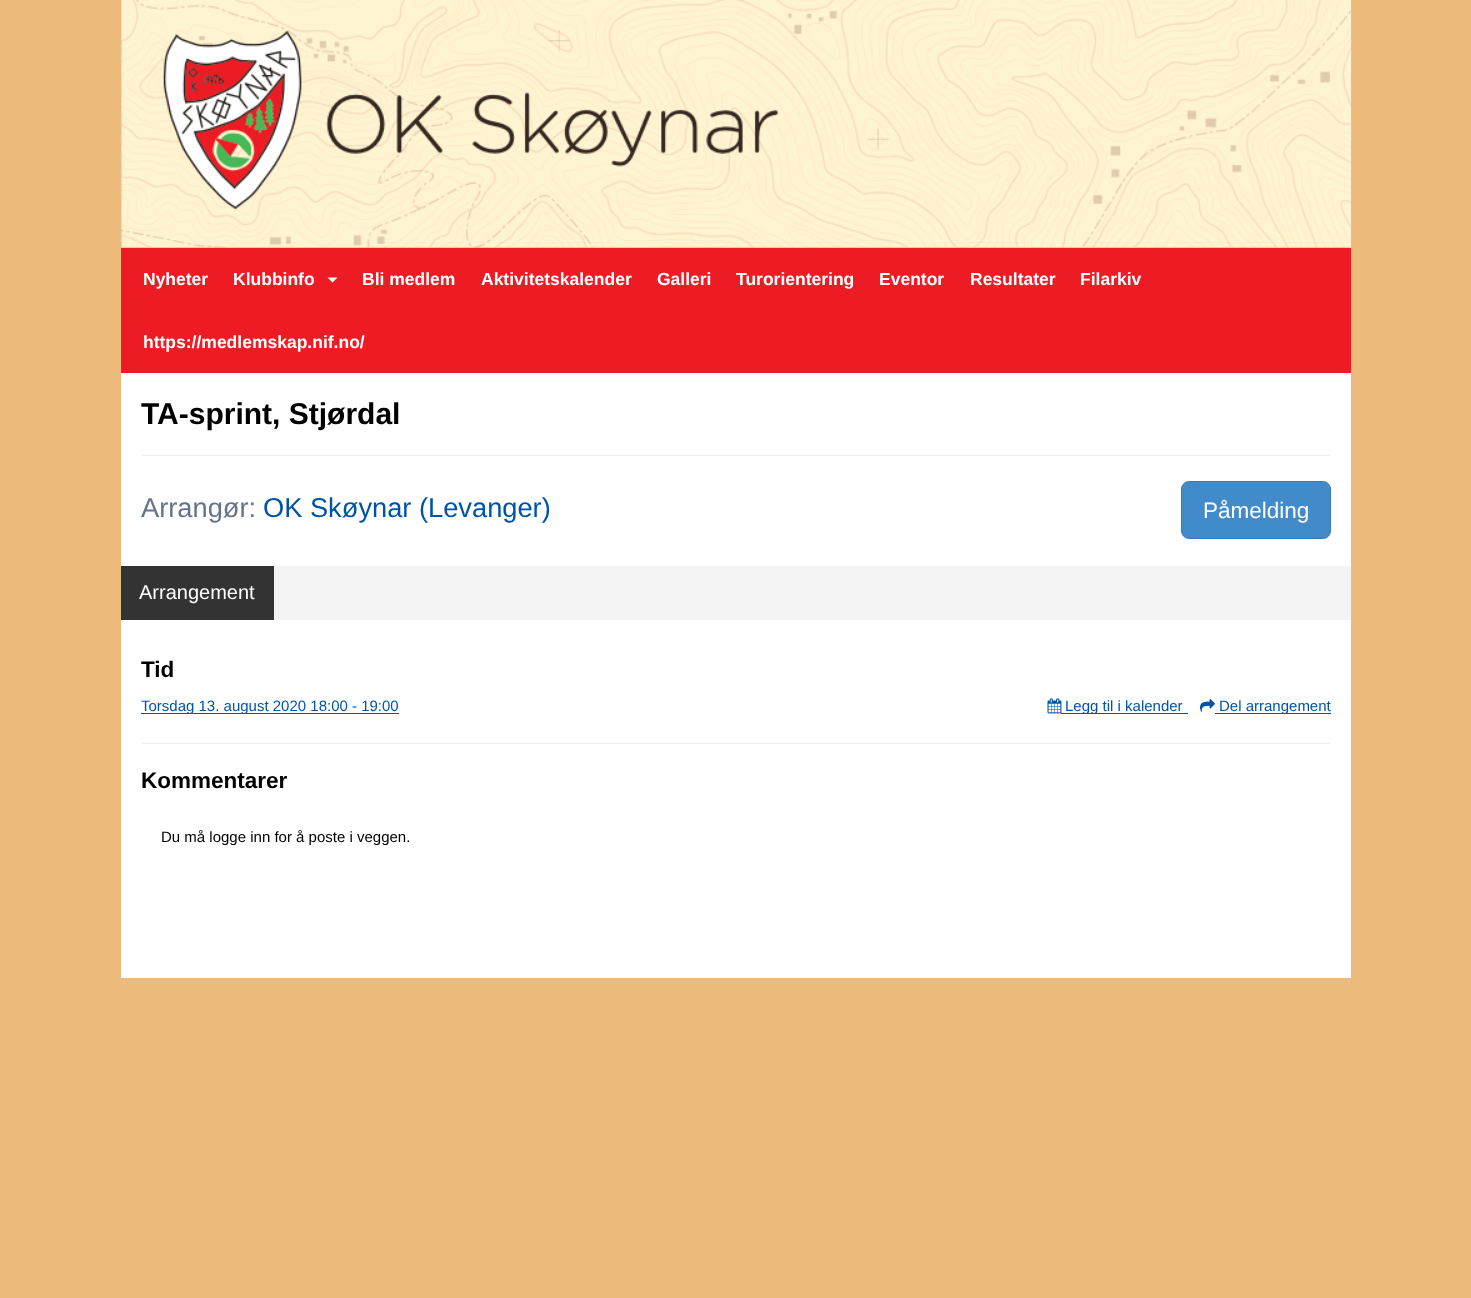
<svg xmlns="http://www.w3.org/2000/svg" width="1471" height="1298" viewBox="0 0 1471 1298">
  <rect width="100%" height="100%" fill="#ecbb7c"/>
  <image x="121" y="0" width="1231" height="248" href="img/1.png"/>
  <path d="M121 248h1230v125H121z" fill="#ed1c24"/>
  <path d="M327.5 277.5H337.5L332.5 282.5Z" fill="#fff"/>
  <path d="M121 373h1230v605H121z" fill="#fff"/>
  <path d="M141 455h1190v1H141z" fill="#eee"/>
  <rect x="1181.5" y="481.5" width="149" height="57" rx="7.5" fill="#428bca" stroke="#357ebd"/>
  <path d="M274 566h1077v54H274z" fill="#f4f4f4"/>
  <path d="M121 566h153v54H121z" fill="#333"/>
  <path d="M141 713h258v1H141z" fill="#0054a6"/>
  <image x="1047" y="698" width="15" height="16" href="img/2.png"/>
  <path d="M1061 713h127v1H1061z" fill="#0054a6"/>
  <image x="1200" y="699" width="15" height="14" href="img/3.png"/>
  <path d="M1215 713h116v1H1215z" fill="#0054a6"/>
  <path d="M141 743h1190v1H141z" fill="#eee"/>
  <g font-family="Liberation Sans" font-size="17.5" font-weight="bold" fill="#fff">
    <text x="143" y="285">Nyheter</text>
    <text x="233" y="285">Klubbinfo</text>
    <text x="362" y="285">Bli medlem</text>
    <text x="481" y="285">Aktivitetskalender</text>
    <text x="657" y="285">Galleri</text>
    <text x="736" y="285">Turorientering</text>
    <text x="879" y="285">Eventor</text>
    <text x="970" y="285">Resultater</text>
    <text x="1080" y="285">Filarkiv</text>
    <text x="143" y="348">https://medlemskap.nif.no/</text>
  </g>
  <text x="141" y="424" font-family="Liberation Sans" font-size="30" font-weight="bold" fill="#000">TA-sprint, Stjørdal</text>
  <text x="141" y="517" font-family="Liberation Sans" font-size="27.25" fill="#64748b">Arrangør:</text>
  <text x="263" y="517" font-family="Liberation Sans" font-size="27.25" fill="#0054a6">OK Skøynar (Levanger)</text>
  <text x="1203" y="518" font-family="Liberation Sans" font-size="22.5" fill="#fff">Påmelding</text>
  <text x="139" y="599" font-family="Liberation Sans" font-size="20" fill="#fff">Arrangement</text>
  <text x="141" y="677" font-family="Liberation Sans" font-size="22.5" font-weight="bold" fill="#000">Tid</text>
  <g font-family="Liberation Sans" font-size="15" fill="#0054a6">
    <text x="141" y="711">Torsdag 13. august 2020 18:00 - 19:00</text>
    <text x="1065" y="711">Legg til i kalender</text>
    <text x="1219" y="711">Del arrangement</text>
  </g>
  <text x="141" y="788" font-family="Liberation Sans" font-size="22.5" font-weight="bold" fill="#000">Kommentarer</text>
  <text x="161" y="842" font-family="Liberation Sans" font-size="15" fill="#000">Du må logge inn for å poste i veggen.</text>
</svg>
